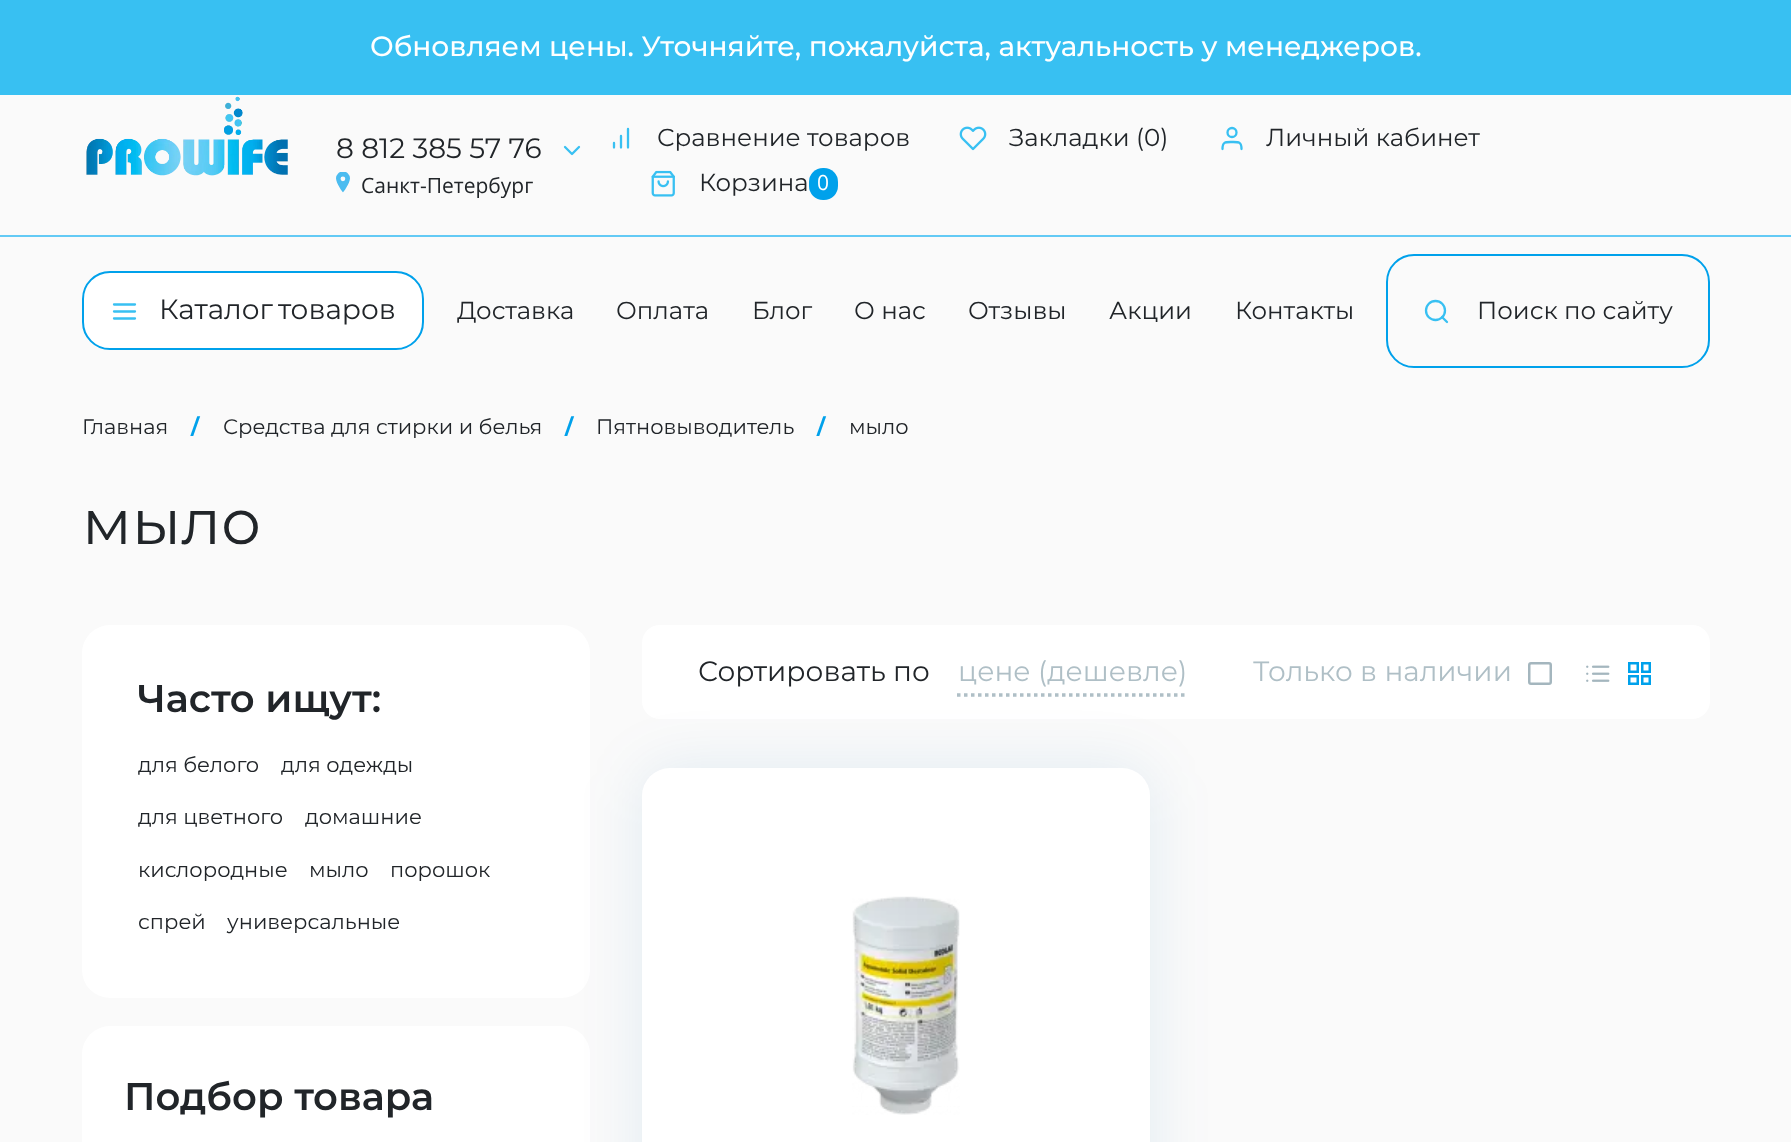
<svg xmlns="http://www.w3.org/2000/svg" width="1791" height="1142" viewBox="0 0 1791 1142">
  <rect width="100%" height="100%" fill="#fafafa"/>
  <path d="M0 0h1791v95H0z" fill="#38c0f2"/>
  <path d="M0 235h1791v2H0z" fill="#63caf5"/>
  <image x="86" y="96" width="202" height="80" href="img/1.png"/>
  <path d="M565 147L572 154L579 147" fill="none" stroke="#38c0f2" stroke-width="2.3" stroke-linecap="round" stroke-linejoin="round"/>
  <image x="336" y="172" width="14" height="21" href="img/2.png"/>
  <path d="M621 147.5V136M628 147.5V129M614 147.5V143" fill="none" stroke="#38c0f2" stroke-width="2.3" stroke-linecap="round" stroke-linejoin="round"/>
  <image x="959" y="126" width="28" height="25" href="img/3.png"/>
  <path d="M1241.5 149C1241.5 141.5 1238.5 142 1232 142C1225.5 142 1222.5 141.5 1222.5 149" fill="none" stroke="#38c0f2" stroke-width="2.3" stroke-linecap="round" stroke-linejoin="round"/>
  <circle cx="1232" cy="132.5" r="4.5" fill="none" stroke="#38c0f2" stroke-width="2.3"/>
  <image x="651" y="170" width="24" height="27" href="img/4.png"/>
  <rect x="809" y="168" width="29" height="32" rx="14" fill="#00a1eb"/>
  <rect x="83" y="272" width="340" height="77" rx="27" fill="#fff" stroke="#00a1eb" stroke-width="2"/>
  <path d="M114 311.5H135M114 304.5H135M114 318.5H135" fill="none" stroke="#38c0f2" stroke-width="2.3" stroke-linecap="round" stroke-linejoin="round"/>
  <rect x="1387" y="255" width="322" height="112" rx="27" fill="none" stroke="#00a1eb" stroke-width="2"/>
  <circle cx="1435.5" cy="310.5" r="9.5" fill="none" stroke="#38c0f2" stroke-width="2.3"/>
  <path d="M1447 322L1442 317" fill="none" stroke="#38c0f2" stroke-width="2.3" stroke-linecap="round" stroke-linejoin="round"/>
  <rect x="642" y="625" width="1068" height="94" rx="18" fill="#fff"/>
  <path d="M957 695H1186.5" fill="none" stroke="#afbfc6" stroke-width="3.5" stroke-dasharray="3.5 3.5"/>
  <rect x="1529.25" y="663.25" width="21.5" height="20.5" rx="1.75" fill="none" stroke="#a4b6be" stroke-width="2.5"/>
  <image x="1586" y="665" width="24" height="17" href="img/5.png"/>
  <path d="M1629.25 663.25h8.5v8.5H1629.25z" fill="none" stroke="#00a1eb" stroke-width="2.5"/>
  <path d="M1642.25 663.25h7.5v8.5H1642.25z" fill="none" stroke="#00a1eb" stroke-width="2.5"/>
  <path d="M1629.25 676.25h8.5v7.5H1629.25z" fill="none" stroke="#00a1eb" stroke-width="2.5"/>
  <path d="M1642.25 676.25h7.5v7.5H1642.25z" fill="none" stroke="#00a1eb" stroke-width="2.5"/>
  <rect x="82" y="625" width="508" height="373" rx="28" fill="#fff"/>
  <rect x="82" y="1026" width="508" height="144" rx="28" fill="#fff"/>
  <rect x="642" y="768" width="508" height="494" rx="28" fill="#005ea21a" filter="blur(30.5px)"/>
  <rect x="642" y="768" width="508" height="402" rx="28" fill="#fff"/>
  <image x="852" y="896" width="108" height="219" href="img/6.png"/>
  <text x="370" y="56" font-family="Montserrat" font-size="28" font-weight="500" fill="#fff">Обновляем цены. Уточняйте, пожалуйста, актуальность у менеджеров.</text>
  <text x="336" y="158" font-family="Montserrat" font-size="28" fill="#212529">8 812 385 57 76</text>
  <text x="361" y="193" font-family="Open Sans" font-size="21" fill="#212529">Санкт-Петербург</text>
  <g font-family="Montserrat" font-size="24.5" fill="#212529">
    <text x="657" y="146">Сравнение товаров</text>
    <text x="1009" y="146">Закладки (0)</text>
    <text x="1266" y="146">Личный кабинет</text>
    <text x="699" y="191">Корзина</text>
  </g>
  <text x="817" y="190" font-family="Open Sans" font-size="21" fill="#fff">0</text>
  <g font-family="Montserrat" font-size="28" fill="#212529">
    <text x="159" y="319">Каталог</text>
    <text x="278" y="319">товаров</text>
  </g>
  <g font-family="Montserrat" font-size="24.5" fill="#212529">
    <text x="457" y="319">Доставка</text>
    <text x="616" y="319">Оплата</text>
    <text x="752" y="319">Блог</text>
    <text x="854" y="319">О нас</text>
    <text x="968" y="319">Отзывы</text>
    <text x="1109" y="319">Акции</text>
    <text x="1235" y="319">Контакты</text>
    <text x="1477" y="319">Поиск по сайту</text>
  </g>
  <text x="82" y="434" font-family="Montserrat" font-size="21" fill="#212529">Главная</text>
  <text x="191" y="434" font-family="Montserrat" font-size="21" font-weight="bold" fill="#00a1eb">/</text>
  <text x="223" y="434" font-family="Montserrat" font-size="21" fill="#212529">Средства для стирки и белья</text>
  <text x="565" y="434" font-family="Montserrat" font-size="21" font-weight="bold" fill="#00a1eb">/</text>
  <text x="596" y="434" font-family="Montserrat" font-size="21" fill="#212529">Пятновыводитель</text>
  <text x="817" y="434" font-family="Montserrat" font-size="21" font-weight="bold" fill="#00a1eb">/</text>
  <text x="849" y="434" font-family="Montserrat" font-size="21" fill="#212529">мыло</text>
  <text x="82" y="544" font-family="Montserrat" font-size="63" fill="#212529">мыло</text>
  <text x="698" y="681" font-family="Montserrat" font-size="28" fill="#212529">Сортировать по</text>
  <g font-family="Montserrat" font-size="28" fill="#afbfc6">
    <text x="958" y="681">цене (дешевле)</text>
    <text x="1253" y="681">Только в наличии</text>
  </g>
  <text x="138" y="712" font-family="Montserrat" font-size="38.5" font-weight="600" fill="#212529">Часто ищут:</text>
  <g font-family="Montserrat" font-size="21" fill="#212529">
    <text x="138" y="772">для белого</text>
    <text x="281" y="772">для одежды</text>
    <text x="138" y="824">для цветного</text>
    <text x="305" y="824">домашние</text>
    <text x="138" y="877">кислородные</text>
    <text x="309" y="877">мыло</text>
    <text x="390" y="877">порошок</text>
    <text x="138" y="929">спрей</text>
    <text x="227" y="929">универсальные</text>
  </g>
  <text x="124" y="1110" font-family="Montserrat" font-size="38.5" font-weight="600" fill="#212529">Подбор товара</text>
</svg>
